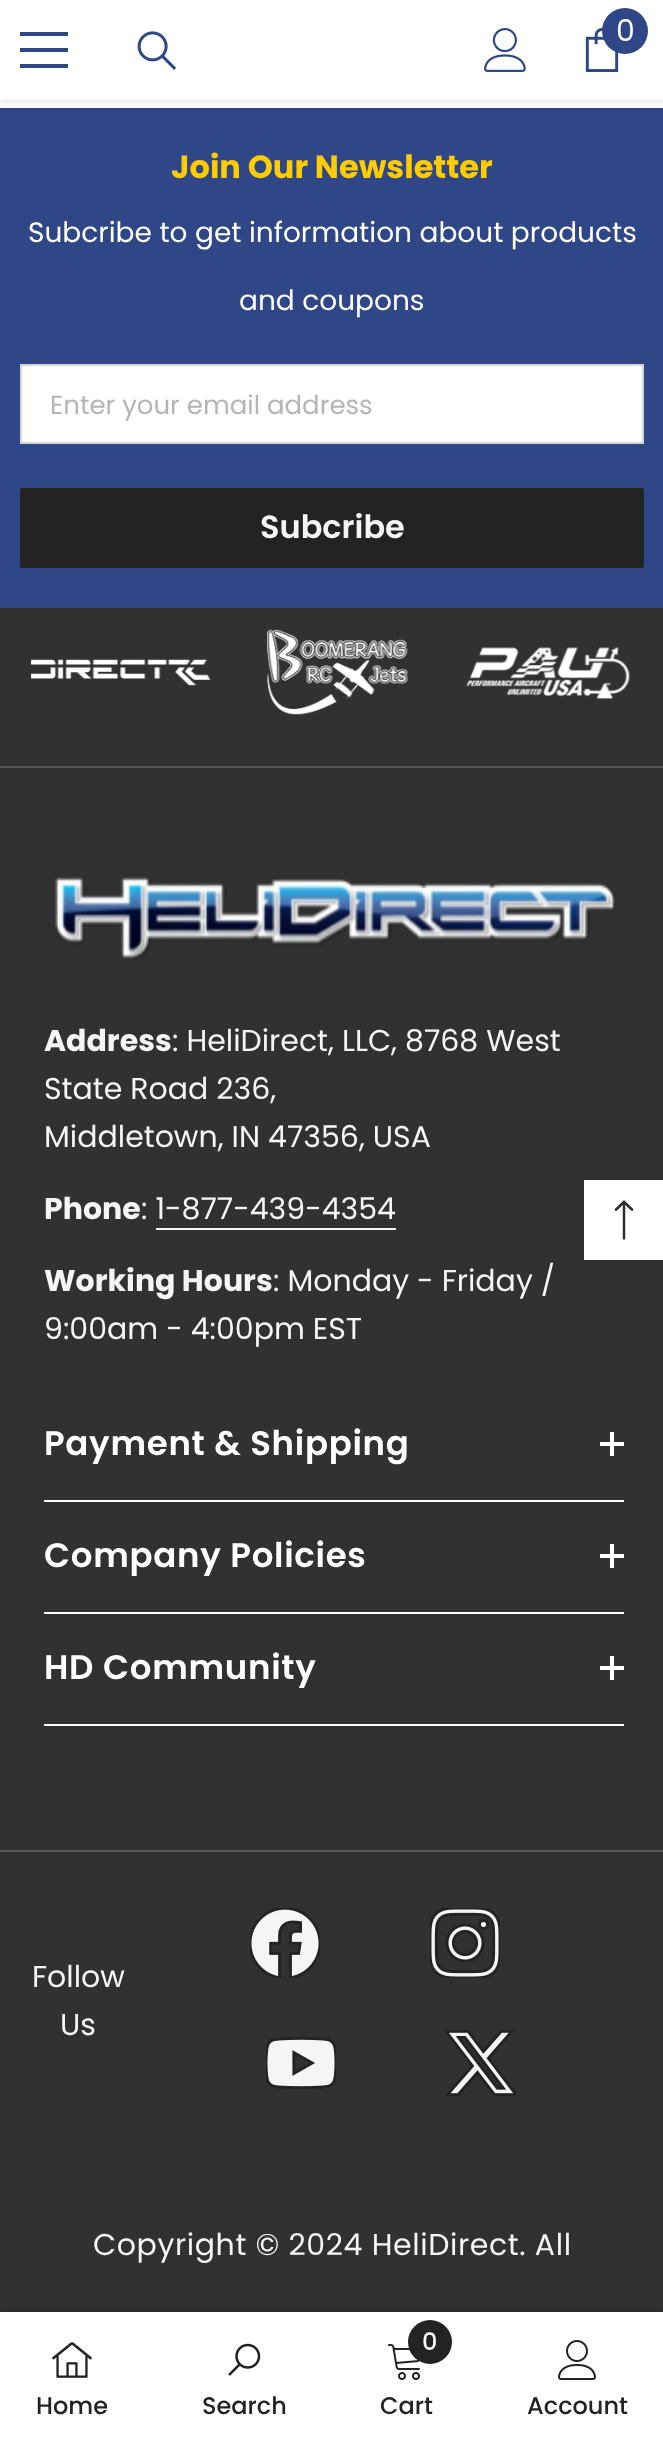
<svg xmlns="http://www.w3.org/2000/svg" width="663" height="2439" viewBox="0 0 663 2439">
  <defs>
    <clipPath id="clip1"><path d="M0 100h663v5H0z"/></clipPath>
  </defs>
  <rect width="100%" height="100%" fill="#fff"/>
  <path d="M0 108h663v500H0z" fill="#2f4787"/>
  <g clip-path="url(#clip1)">
    <path d="M0 2h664v100H0z" fill="#0000001a" filter="blur(3px)"/>
  </g>
  <path d="M20 48h48v4H20z" fill="#2f4787"/>
  <path d="M20 32h48v4H20z" fill="#2f4787"/>
  <path d="M20 64h48v4H20z" fill="#2f4787"/>
  <image x="137" y="31" width="40" height="39" href="img/1.png"/>
  <image x="484" y="28" width="42" height="44" href="img/2.png"/>
  <image x="585" y="28" width="34" height="44" href="img/3.png"/>
  <circle cx="625" cy="31" r="23" fill="#2f4787"/>
  <path d="M21 365h622v78H21z" fill="#fff" stroke="#d5d5d5" stroke-width="2"/>
  <rect x="21" y="489" width="622" height="78" rx="1" fill="#232323" stroke="#242424" stroke-width="2"/>
  <path d="M0 608h663v158H0z" fill="#313131"/>
  <image x="31" y="659" width="180" height="27" href="img/4.png"/>
  <image x="267" y="629" width="141" height="86" href="img/5.png"/>
  <image x="466" y="647" width="164" height="52" href="img/6.png"/>
  <path d="M0 768h663v1082H0z" fill="#313131"/>
  <path d="M0 766h663v2H0z" fill="#565656"/>
  <image x="55" y="877" width="561" height="83" href="img/7.png"/>
  <path d="M156 1228h240v2H156z" fill="#f5f5f5"/>
  <path d="M44 1500h580v2H44z" fill="#fefefe"/>
  <path d="M610 1432h4v24H610z" fill="#fefefe"/>
  <path d="M600 1442h24v4H600z" fill="#fefefe"/>
  <path d="M44 1612h580v2H44z" fill="#fefefe"/>
  <path d="M610 1544h4v24H610z" fill="#fefefe"/>
  <path d="M600 1554h24v4H600z" fill="#fefefe"/>
  <path d="M44 1724h580v2H44z" fill="#fefefe"/>
  <path d="M610 1656h4v24H610z" fill="#fefefe"/>
  <path d="M600 1666h24v4H600z" fill="#fefefe"/>
  <path d="M0 1852h663v460H0z" fill="#313131"/>
  <path d="M0 1850h663v2H0z" fill="#565656"/>
  <image x="250" y="1908" width="70" height="70" href="img/8.png"/>
  <image x="430" y="1908" width="70" height="70" href="img/9.png"/>
  <image x="266" y="2037" width="70" height="52" href="img/10.png"/>
  <image x="446" y="2030" width="70" height="66" href="img/11.png"/>
  <path d="M0 2312h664v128H0z" fill="#0000001f" filter="blur(9px)"/>
  <path d="M0 2312h663v127H0z" fill="#fff"/>
  <image x="52" y="2342" width="40" height="36" href="img/12.png"/>
  <image x="228" y="2343" width="33" height="33" href="img/13.png"/>
  <image x="388" y="2344" width="32" height="36" href="img/14.png"/>
  <circle cx="430" cy="2342" r="22" fill="#232323"/>
  <image x="558" y="2340" width="38" height="40" href="img/15.png"/>
  <path d="M584 1180h79v80H584z" fill="#fff"/>
  <image x="614" y="1200" width="20" height="40" href="img/16.png"/>
  <text x="616" y="41" font-family="Poppins" font-size="30" fill="#fff">0</text>
  <text x="171" y="178" font-family="Poppins" font-size="32" font-weight="bold" fill="#ffcc02">Join Our Newsletter</text>
  <g font-family="Poppins" font-size="28" fill="#fff">
    <text x="28" y="242">Subcribe to get information about products</text>
    <text x="239" y="310">and coupons</text>
  </g>
  <text x="50" y="414" font-family="Poppins" font-size="26" fill="#b5b5b5">Enter your email address</text>
  <text x="260" y="538" font-family="Poppins" font-size="32" font-weight="600" fill="#f5f5f5">Subcribe</text>
  <text x="44" y="1051" font-family="Poppins" font-size="30" font-weight="bold" fill="#f5f5f5">Address</text>
  <g font-family="Poppins" font-size="30" fill="#f5f5f5">
    <text x="172" y="1051">: HeliDirect, LLC, 8768 West</text>
    <text x="44" y="1099">State Road 236,</text>
    <text x="44" y="1147">Middletown, IN 47356, USA</text>
  </g>
  <text x="44" y="1219" font-family="Poppins" font-size="30" font-weight="bold" fill="#f5f5f5">Phone</text>
  <text x="141" y="1219" font-family="Poppins" font-size="30" fill="#f5f5f5">: 1-877-439-4354</text>
  <text x="44" y="1291" font-family="Poppins" font-size="30" font-weight="bold" fill="#f5f5f5">Working Hours</text>
  <g font-family="Poppins" font-size="30" fill="#f5f5f5">
    <text x="273" y="1291">: Monday - Friday /</text>
    <text x="44" y="1339">9:00am - 4:00pm EST</text>
  </g>
  <g font-family="Poppins" font-size="34" font-weight="600" letter-spacing="0.7" fill="#fff">
    <text x="44" y="1455">Payment &amp; Shipping</text>
    <text x="44" y="1567">Company Policies</text>
    <text x="44" y="1679">HD Community</text>
  </g>
  <g font-family="Poppins" font-size="30" fill="#f5f5f5">
    <text x="32" y="1987">Follow</text>
    <text x="60" y="2035">Us</text>
  </g>
  <text x="93" y="2255" font-family="Poppins" font-size="30" letter-spacing="0.6" fill="#f5f5f5">Copyright © 2024 HeliDirect. All</text>
  <g font-family="Poppins" font-size="24" font-weight="500" fill="#232323">
    <text x="36" y="2414">Home</text>
    <text x="202" y="2414">Search</text>
  </g>
  <text x="422" y="2350" font-family="Poppins" font-size="24" font-weight="500" fill="#fff">0</text>
  <g font-family="Poppins" font-size="24" font-weight="500" fill="#232323">
    <text x="380" y="2414">Cart</text>
    <text x="527" y="2414">Account</text>
  </g>
</svg>
